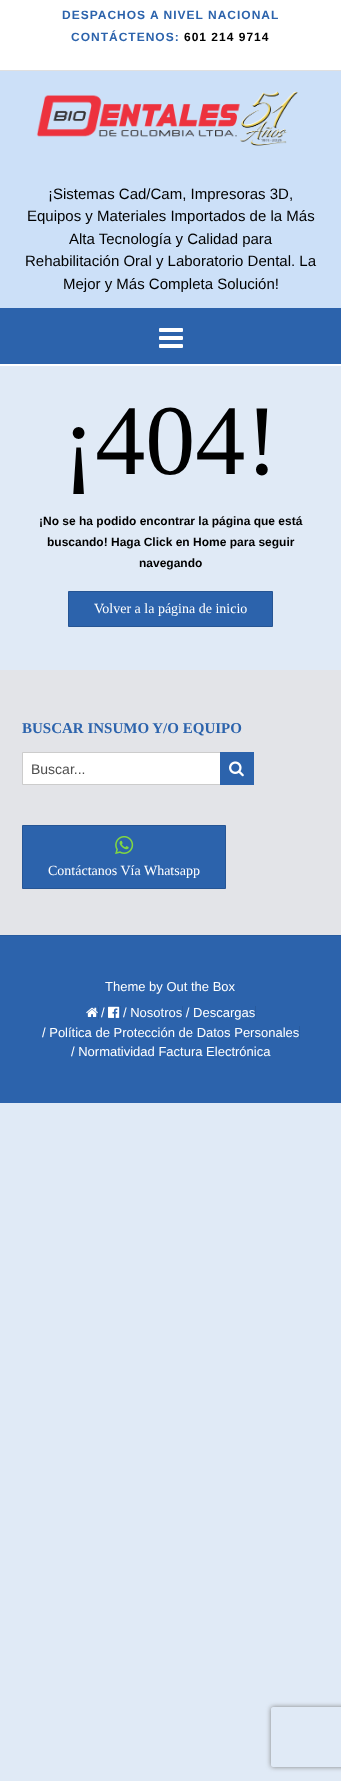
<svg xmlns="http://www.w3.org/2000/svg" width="341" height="1781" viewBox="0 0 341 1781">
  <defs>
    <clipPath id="clip1"><path d="M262 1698H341V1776H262ZM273 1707H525C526 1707 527 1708 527 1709V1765C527 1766 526 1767 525 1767H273C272 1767 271 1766 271 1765V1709C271 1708 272 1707 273 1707Z" clip-rule="evenodd"/></clipPath>
  </defs>
  <rect width="100%" height="100%" fill="#e0eaf6"/>
  <path d="M0 71h341v237H0z" fill="#cce0f8"/>
  <path d="M0 0h341v70H0z" fill="#fff"/>
  <path d="M0 70h341v1H0z" fill="#e0e0e0"/>
  <image x="36" y="91" width="262" height="55" href="img/1.png"/>
  <path d="M0 308h341v56H0z" fill="#2c63ac"/>
  <path d="M0 364h341v2H0z" fill="#fff"/>
  <image x="159" y="328" width="24" height="20" href="img/2.png"/>
  <path d="M68.5 591.5h204v35H68.5z" fill="#2c63ac" stroke="#265594"/>
  <path d="M0 670h341v265H0z" fill="#e3e4e8"/>
  <path d="M23 753h197v31H23z" fill="#fff"/>
  <path d="M22.5 752.5h199v32H22.5z" fill="none" stroke="#ccc"/>
  <path d="M220 752h34v33H220z" fill="#2c63ac"/>
  <image x="229" y="761" width="15" height="16" href="img/3.png"/>
  <path d="M22.5 825.5h203v63H22.5z" fill="#2c63ac" stroke="#265594"/>
  <image x="115" y="836" width="19" height="18" href="img/4.png"/>
  <path d="M0 936h341v167H0z" fill="#2c63ac"/>
  <path d="M0 935h341v1H0z" fill="#285b9e"/>
  <path d="M98 1006h1v13H98z" fill="#285b9e"/>
  <image x="86" y="1007" width="12" height="10" href="img/5.png"/>
  <path d="M120 1006h1v13H120z" fill="#285b9e"/>
  <image x="108" y="1006" width="12" height="12" href="img/6.png"/>
  <path d="M182 1006h1v13H182z" fill="#285b9e"/>
  <path d="M255 1006h1v13H255z" fill="#285b9e"/>
  <path d="M299 1026h1v13H299z" fill="#285b9e"/>
  <g clip-path="url(#clip1)">
    <rect x="271" y="1707" width="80" height="60" rx="2" fill="#808080" filter="blur(2.5px)"/>
  </g>
  <g font-family="Liberation Sans" font-size="12" font-weight="bold" letter-spacing="1" fill="#2c63ac">
    <text x="62" y="19">DESPACHOS A NIVEL NACIONAL</text>
    <text x="71" y="41">CONTÁCTENOS:</text>
  </g>
  <text x="184" y="41" font-family="Liberation Sans" font-size="12" font-weight="bold" letter-spacing="1" fill="#000">601 214 9714</text>
  <g font-family="Liberation Sans" font-size="15" fill="#000">
    <text x="48" y="199">¡Sistemas Cad/Cam, Impresoras 3D,</text>
    <text x="27" y="221">Equipos y Materiales Importados de la Más</text>
    <text x="69" y="244">Alta Tecnología y Calidad para</text>
    <text x="25" y="266">Rehabilitación Oral y Laboratorio Dental. La</text>
    <text x="63" y="289">Mejor y Más Completa Solución!</text>
  </g>
  <text x="62" y="474" font-family="Liberation Serif" font-size="100" fill="#000">¡404!</text>
  <g font-family="Liberation Sans" font-size="12" font-weight="bold" fill="#000">
    <text x="39" y="525">¡No se ha podido encontrar la página que está</text>
    <text x="47" y="546">buscando! Haga Click en Home para seguir</text>
    <text x="139" y="567">navegando</text>
  </g>
  <text x="94" y="613" font-family="Liberation Serif" font-size="14" fill="#fff">Volver a la página de inicio</text>
  <text x="22" y="733" font-family="Liberation Serif" font-size="15" font-weight="bold" fill="#2c63ac">BUSCAR INSUMO Y/O EQUIPO</text>
  <text x="31" y="774" font-family="Liberation Sans" font-size="14" fill="#4d4d4d">Buscar...</text>
  <text x="48" y="875" font-family="Liberation Serif" font-size="14" fill="#fff">Contáctanos Vía Whatsapp</text>
  <g font-family="Liberation Sans" font-size="13" fill="#fff">
    <text x="105" y="991">Theme by Out the Box</text>
    <text x="101" y="1017">/</text>
    <text x="123" y="1017">/ Nosotros / Descargas</text>
    <text x="42" y="1037">/ Política de Protección de Datos Personales</text>
    <text x="71" y="1056">/ Normatividad Factura Electrónica</text>
  </g>
</svg>
